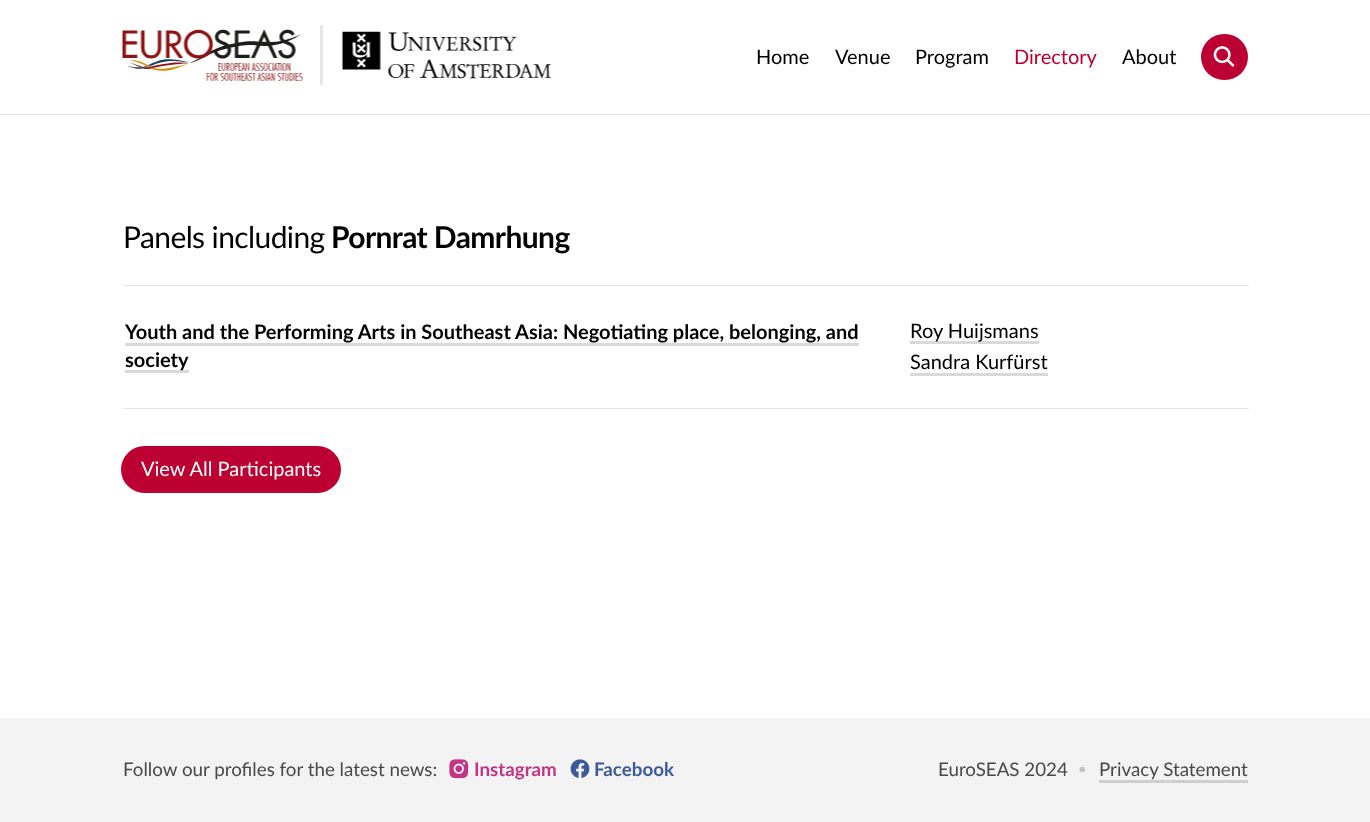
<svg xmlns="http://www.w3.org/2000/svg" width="1370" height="822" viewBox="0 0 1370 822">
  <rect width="100%" height="100%" fill="#fff"/>
  <path d="M0 114h1370v1H0z" fill="#e6e6e6"/>
  <image x="122" y="29" width="181" height="52" href="img/1.png"/>
  <path d="M320 25h3v60H320z" fill="#e6e6e6"/>
  <image x="342" y="31" width="210" height="48" href="img/2.png"/>
  <rect x="1201" y="34" width="47" height="46" rx="23" fill="#bd0032"/>
  <image x="1213" y="46" width="22" height="21" href="img/3.png"/>
  <path d="M125 343h734v3H125z" fill="#d9d9d9"/>
  <path d="M125 370h64v3H125z" fill="#d9d9d9"/>
  <path d="M123 285h1126v1H123z" fill="#e6e6e6"/>
  <path d="M123 408h1126v1H123z" fill="#e6e6e6"/>
  <path d="M910 341h129v3H910z" fill="#d9d9d9"/>
  <path d="M910 373h138v3H910z" fill="#d9d9d9"/>
  <rect x="121" y="446" width="220" height="47" rx="23.5" fill="#bd0032"/>
  <path d="M0 718h1370v104H0z" fill="#f3f3f3"/>
  <image x="449" y="759" width="20" height="20" href="img/4.png"/>
  <image x="570" y="759" width="20" height="19" href="img/5.png"/>
  <path d="M1099 780h149v3H1099z" fill="#cfcfcf"/>
  <g font-family="Lato" font-size="20" fill="#000">
    <text x="756" y="64">Home</text>
    <text x="835" y="64">Venue</text>
    <text x="915" y="64">Program</text>
  </g>
  <text x="1014" y="64" font-family="Lato" font-size="20" fill="#bd0032">Directory</text>
  <text x="1122" y="64" font-family="Lato" font-size="20" fill="#000">About</text>
  <text x="123" y="248" font-family="Lato" font-size="30" letter-spacing="-0.6" fill="#000">Panels including</text>
  <text x="331" y="248" font-family="Lato" font-size="30" font-weight="bold" letter-spacing="-0.6" fill="#000">Pornrat Damrhung</text>
  <g font-family="Lato" font-size="20" font-weight="bold" fill="#000">
    <text x="125" y="339">Youth and the Performing Arts in Southeast Asia: Negotiating place, belonging, and</text>
    <text x="125" y="367">society</text>
  </g>
  <g font-family="Lato" font-size="20" fill="#000">
    <text x="910" y="338">Roy Huijsmans</text>
    <text x="910" y="369">Sandra Kurfürst</text>
  </g>
  <text x="141" y="476" font-family="Lato" font-size="20" fill="#fff">View All Participants</text>
  <text x="123" y="776" font-family="Lato" font-size="18.75" fill="#484848">Follow our profiles for the latest news:</text>
  <text x="474" y="776" font-family="Lato" font-size="18.75" font-weight="bold" fill="#c13584">Instagram</text>
  <text x="594" y="776" font-family="Lato" font-size="18.75" font-weight="bold" fill="#3c5a99">Facebook</text>
  <text x="938" y="776" font-family="Lato" font-size="18.75" fill="#484848">EuroSEAS 2024</text>
  <text x="1078" y="774" font-family="Lato" font-size="15" fill="#c2c2c2">•</text>
  <text x="1099" y="776" font-family="Lato" font-size="18.75" fill="#484848">Privacy Statement</text>
</svg>
